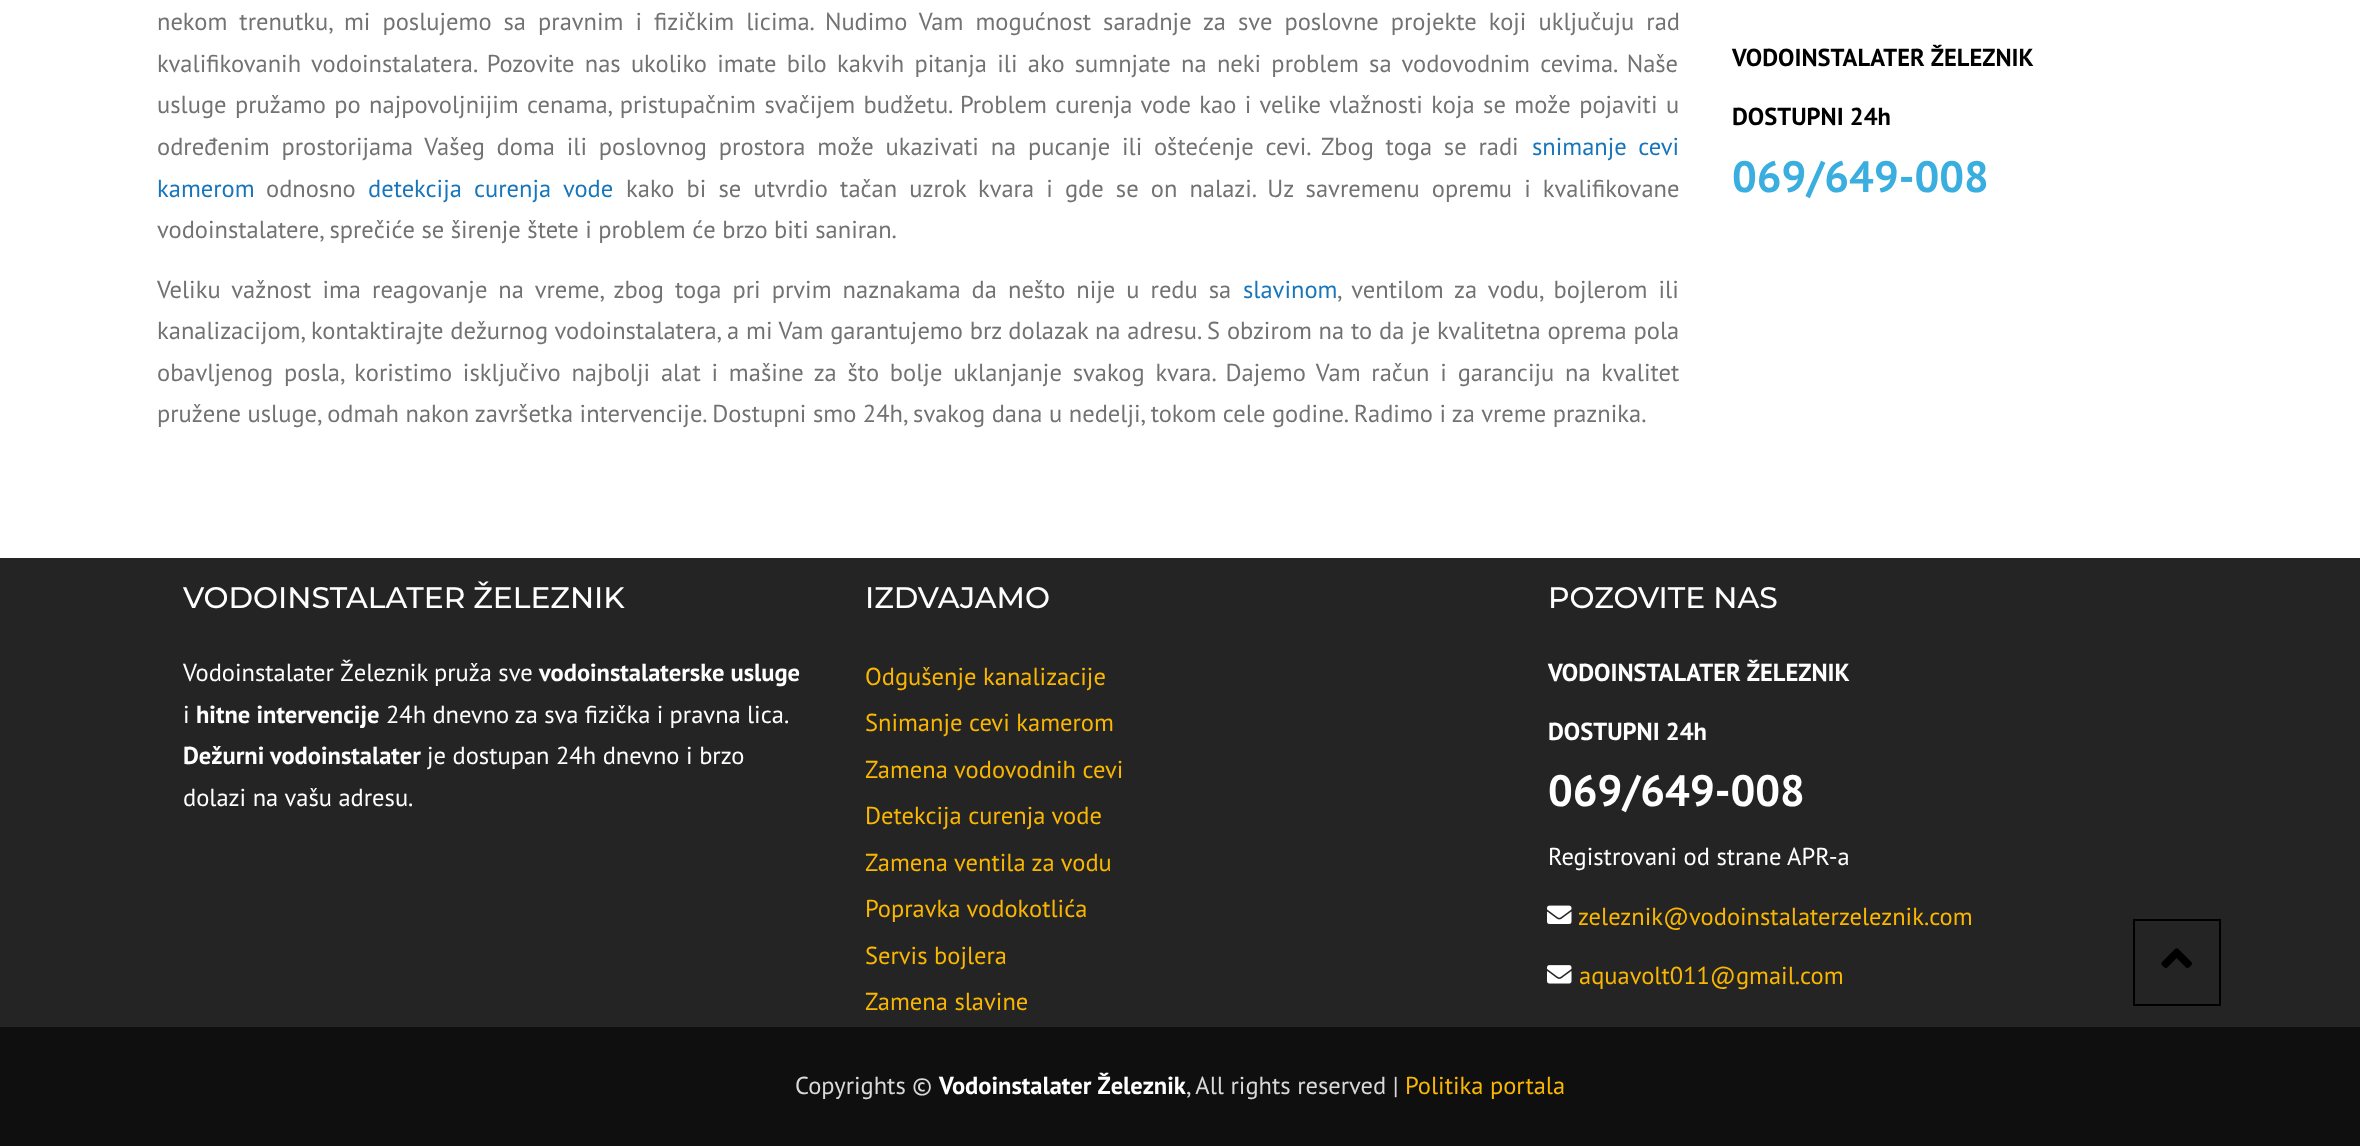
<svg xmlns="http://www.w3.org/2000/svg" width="2360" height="1146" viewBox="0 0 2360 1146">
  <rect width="100%" height="100%" fill="#fff"/>
  <path d="M0 558h2360v469H0z" fill="#242424"/>
  <image x="1547" y="905" width="25" height="19" href="img/1.png"/>
  <image x="1547" y="965" width="25" height="19" href="img/2.png"/>
  <path d="M0 1027h2360v119H0z" fill="#0f0f0f"/>
  <path d="M2134 920h86v85H2134z" fill="none" stroke="#000" stroke-width="2"/>
  <image x="2161" y="948" width="31" height="20" href="img/3.png"/>
  <g font-family="PT Sans" font-size="24.5" fill="#727272">
    <text x="157" y="30" word-spacing="5.5">nekom trenutku, mi poslujemo sa pravnim i fizičkim licima. Nudimo Vam mogućnost saradnje za sve poslovne projekte koji uključuju rad</text>
    <text x="157" y="72" word-spacing="3.75">kvalifikovanih vodoinstalatera. Pozovite nas ukoliko imate bilo kakvih pitanja ili ako sumnjate na neki problem sa vodovodnim cevima. Naše</text>
    <text x="157" y="113" word-spacing="1.9">usluge pružamo po najpovoljnijim cenama, pristupačnim svačijem budžetu. Problem curenja vode kao i velike vlažnosti koja se može pojaviti u</text>
    <text x="157" y="155" word-spacing="5.25">određenim prostorijama Vašeg doma ili poslovnog prostora može ukazivati na pucanje ili oštećenje cevi. Zbog toga se radi</text>
  </g>
  <g font-family="PT Sans" font-size="24.5" fill="#1775bb">
    <text x="1532" y="155" word-spacing="5">snimanje cevi</text>
    <text x="157" y="197">kamerom</text>
  </g>
  <text x="266" y="197" font-family="PT Sans" font-size="24.5" fill="#727272">odnosno</text>
  <text x="368" y="197" word-spacing="5.6" font-family="PT Sans" font-size="24.5" fill="#1775bb">detekcija curenja vode</text>
  <g font-family="PT Sans" font-size="24.5" fill="#727272">
    <text x="626" y="197" word-spacing="5.6">kako bi se utvrdio tačan uzrok kvara i gde se on nalazi. Uz savremenu opremu i kvalifikovane</text>
    <text x="157" y="238">vodoinstalatere, sprečiće se širenje štete i problem će brzo biti saniran.</text>
    <text x="157" y="298" word-spacing="4.5">Veliku važnost ima reagovanje na vreme, zbog toga pri prvim naznakama da nešto nije u redu sa</text>
  </g>
  <text x="1243" y="298" font-family="PT Sans" font-size="24.5" fill="#1775bb">slavinom</text>
  <g font-family="PT Sans" font-size="24.5" fill="#727272">
    <text x="1337" y="298" word-spacing="4.5">, ventilom za vodu, bojlerom ili</text>
    <text x="157" y="339" word-spacing="0.3">kanalizacijom, kontaktirajte dežurnog vodoinstalatera, a mi Vam garantujemo brz dolazak na adresu. S obzirom na to da je kvalitetna oprema pola</text>
    <text x="157" y="381" word-spacing="4.25">obavljenog posla, koristimo isključivo najbolji alat i mašine za što bolje uklanjanje svakog kvara. Dajemo Vam račun i garanciju na kvalitet</text>
    <text x="157" y="422">pružene usluge, odmah nakon završetka intervencije. Dostupni smo 24h, svakog dana u nedelji, tokom cele godine. Radimo i za vreme praznika.</text>
  </g>
  <g font-family="PT Sans" font-size="24.5" font-weight="bold" fill="#000">
    <text x="1732" y="66">VODOINSTALATER ŽELEZNIK</text>
    <text x="1732" y="125">DOSTUPNI 24h</text>
  </g>
  <text x="1732" y="192" font-family="PT Sans" font-size="43.75" font-weight="bold" fill="#3aaedf">069/649-008</text>
  <text x="183" y="608" font-family="Montserrat" font-size="29.75" font-weight="500" fill="#fff">VODOINSTALATER ŽELEZNIK</text>
  <text x="183" y="681" font-family="PT Sans" font-size="24.5" fill="#fff">Vodoinstalater Železnik pruža sve</text>
  <text x="539" y="681" font-family="PT Sans" font-size="24.5" font-weight="bold" fill="#fff">vodoinstalaterske usluge</text>
  <text x="183" y="723" font-family="PT Sans" font-size="24.5" fill="#fff">i</text>
  <text x="196" y="723" font-family="PT Sans" font-size="24.5" font-weight="bold" fill="#fff">hitne intervencije</text>
  <text x="386" y="723" word-spacing="-0.25" font-family="PT Sans" font-size="24.5" fill="#fff">24h dnevno za sva fizička i pravna lica.</text>
  <text x="183" y="764" font-family="PT Sans" font-size="24.5" font-weight="bold" fill="#fff">Dežurni vodoinstalater</text>
  <g font-family="PT Sans" font-size="24.5" fill="#fff">
    <text x="427" y="764">je dostupan 24h dnevno i brzo</text>
    <text x="183" y="806">dolazi na vašu adresu.</text>
  </g>
  <text x="865" y="608" font-family="Montserrat" font-size="29.75" font-weight="500" fill="#fff">IZDVAJAMO</text>
  <g font-family="PT Sans" font-size="24.5" fill="#fab702">
    <text x="865" y="685">Odgušenje kanalizacije</text>
    <text x="865" y="731">Snimanje cevi kamerom</text>
    <text x="865" y="778">Zamena vodovodnih cevi</text>
    <text x="865" y="824">Detekcija curenja vode</text>
    <text x="865" y="871">Zamena ventila za vodu</text>
    <text x="865" y="917">Popravka vodokotlića</text>
    <text x="865" y="964">Servis bojlera</text>
    <text x="865" y="1010">Zamena slavine</text>
  </g>
  <text x="1548" y="608" font-family="Montserrat" font-size="29.75" font-weight="500" fill="#fff">POZOVITE NAS</text>
  <g font-family="PT Sans" font-size="24.5" font-weight="bold" fill="#fff">
    <text x="1548" y="681">VODOINSTALATER ŽELEZNIK</text>
    <text x="1548" y="740">DOSTUPNI 24h</text>
  </g>
  <text x="1548" y="806" font-family="PT Sans" font-size="43.75" font-weight="bold" fill="#fff">069/649-008</text>
  <text x="1548" y="865" font-family="PT Sans" font-size="24.5" fill="#fff">Registrovani od strane APR-a</text>
  <g font-family="PT Sans" font-size="24.5" fill="#fab702">
    <text x="1578" y="925">zeleznik@vodoinstalaterzeleznik.com</text>
    <text x="1579" y="984">aquavolt011@gmail.com</text>
  </g>
  <text x="795" y="1094" font-family="PT Sans" font-size="24.5" fill="#d9d9d9">Copyrights ©</text>
  <text x="939" y="1094" font-family="PT Sans" font-size="24.5" font-weight="bold" fill="#fff">Vodoinstalater Železnik</text>
  <text x="1186" y="1094" font-family="PT Sans" font-size="24.5" fill="#d9d9d9">, All rights reserved |</text>
  <text x="1405" y="1094" font-family="PT Sans" font-size="24.5" fill="#fab702">Politika portala</text>
</svg>
